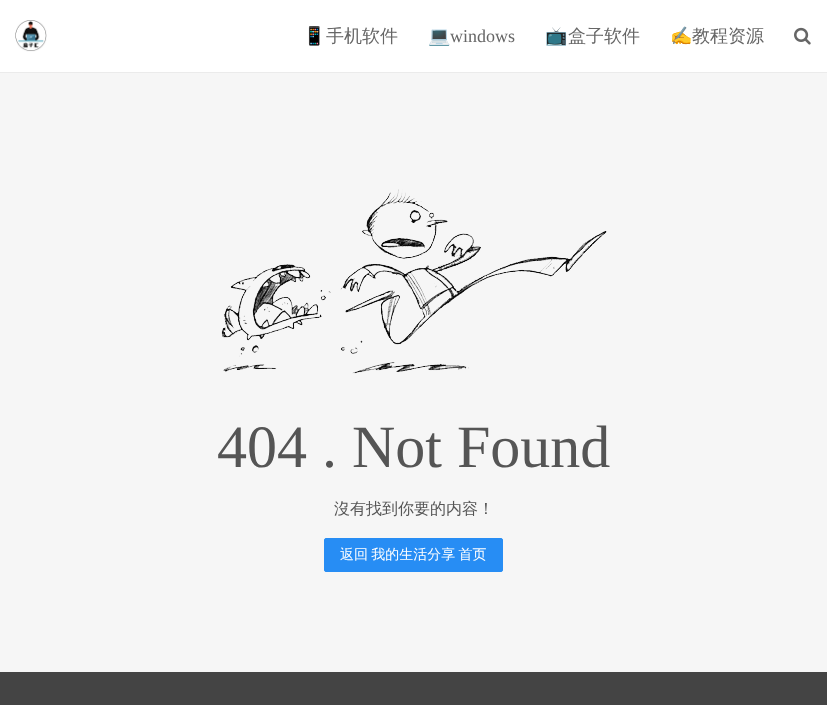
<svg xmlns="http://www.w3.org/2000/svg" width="827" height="705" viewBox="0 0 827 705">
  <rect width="100%" height="100%" fill="#f6f6f6"/>
  <path d="M0 0h827v72H0z" fill="#fff"/>
  <path d="M0 72h827v1H0z" fill="#ebebeb"/>
  <image x="15" y="20" width="32" height="32" href="img/1.png"/>
  <image x="794" y="27" width="17" height="18" href="img/2.png"/>
  <image x="221" y="189" width="386" height="185" href="img/3.png"/>
  <rect x="324.5" y="538.5" width="178" height="33" rx="1.5" fill="#278df4" stroke="#278df4"/>
  <path d="M0 672h827v33H0z" fill="#444"/>
  <text x="303" y="42" font-family="Noto Color Emoji" font-size="18" fill="#666">📱</text>
  <text x="326" y="42" font-family="WenQuanYi Zen Hei" font-size="18" font-weight="500" fill="#666">手机软件</text>
  <text x="428" y="42" font-family="Noto Color Emoji" font-size="18" fill="#666">💻</text>
  <text x="450" y="42" font-family="Liberation Serif" font-size="18" fill="#666">windows</text>
  <text x="545" y="42" font-family="Noto Color Emoji" font-size="18" fill="#666">📺</text>
  <text x="568" y="42" font-family="WenQuanYi Zen Hei" font-size="18" font-weight="500" fill="#666">盒子软件</text>
  <text x="670" y="42" font-family="Noto Color Emoji" font-size="18" fill="#666">✍</text>
  <text x="692" y="42" font-family="WenQuanYi Zen Hei" font-size="18" font-weight="500" fill="#666">教程资源</text>
  <text x="217" y="467" font-family="Liberation Serif" font-size="60" fill="#555">404 . Not Found</text>
  <text x="334" y="514" font-family="WenQuanYi Zen Hei" font-size="16" font-weight="500" fill="#555">沒有找到你要的内容！</text>
  <text x="340" y="559" word-spacing="-1" font-family="WenQuanYi Zen Hei" font-size="14" font-weight="500" fill="#fff">返回 我的生活分享 首页</text>
</svg>
